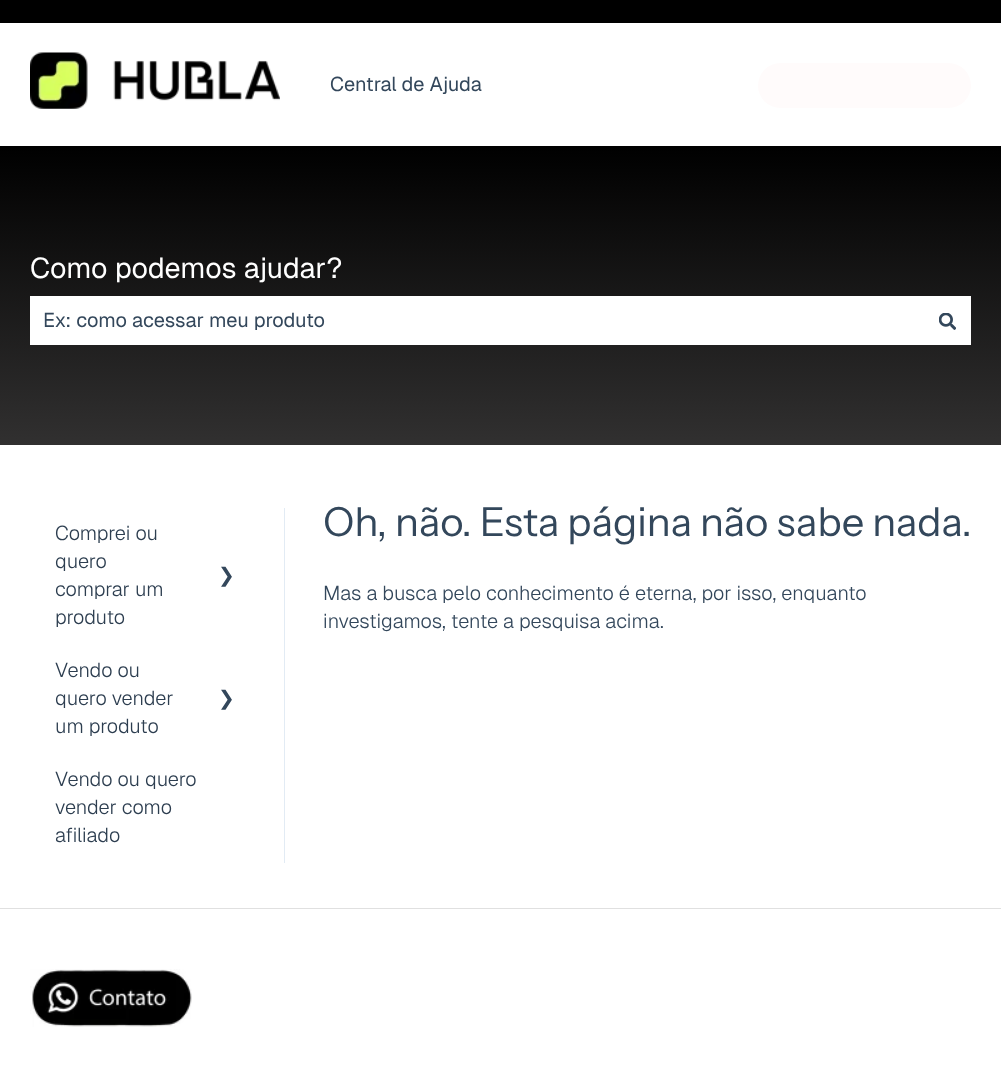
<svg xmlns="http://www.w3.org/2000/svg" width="1001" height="1089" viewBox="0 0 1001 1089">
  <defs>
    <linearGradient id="g1" gradientUnits="userSpaceOnUse" x1="501" y1="146" x2="501" y2="445"><stop offset="0" stop-color="#000"/><stop offset="1" stop-color="#313030"/></linearGradient>
  </defs>
  <rect width="100%" height="100%" fill="#fff"/>
  <path d="M0 0h1001v23H0z" fill="#000"/>
  <image x="30" y="52" width="250" height="57" href="img/1.png"/>
  <rect x="758" y="63" width="213" height="45" rx="22.5" fill="#fffbfb"/>
  <path d="M0 146h1001v299H0z" fill="url(#g1)"/>
  <path d="M30 296h941v49H30z" fill="#fff"/>
  <image x="939" y="313" width="17" height="17" href="img/2.png"/>
  <path d="M284 508h1v355H284z" fill="#e2ebf4"/>
  <path d="M0 908h1001v1H0z" fill="#e0e0e0"/>
  <image x="30" y="969" width="162" height="58" href="img/3.png"/>
  <text x="330" y="91" font-family="Geist" font-size="20" fill="#33475b">Central de Ajuda</text>
  <text x="30" y="278" font-family="Geist" font-size="28.75" fill="#fff">Como podemos ajudar?</text>
  <text x="43" y="327" font-family="Geist" font-size="20" fill="#33475b">Ex: como acessar meu produto</text>
  <g font-family="Geist" font-size="20" font-weight="300" fill="#2d3e50">
    <text x="55" y="540">Comprei ou</text>
    <text x="55" y="568">quero</text>
    <text x="55" y="596">comprar um</text>
    <text x="55" y="624">produto</text>
  </g>
  <text x="218" y="582" font-family="DejaVu Sans" font-size="20" fill="#33475b">❯</text>
  <g font-family="Geist" font-size="20" font-weight="300" fill="#2d3e50">
    <text x="55" y="677">Vendo ou</text>
    <text x="55" y="705">quero vender</text>
    <text x="55" y="733">um produto</text>
  </g>
  <text x="218" y="705" font-family="DejaVu Sans" font-size="20" fill="#33475b">❯</text>
  <g font-family="Geist" font-size="20" font-weight="300" fill="#2d3e50">
    <text x="55" y="786">Vendo ou quero</text>
    <text x="55" y="814">vender como</text>
    <text x="55" y="842">afiliado</text>
  </g>
  <text x="323" y="536" font-family="Instrument Sans" font-size="40" fill="#33475b">Oh, não. Esta página não sabe nada.</text>
  <g font-family="Geist" font-size="20" font-weight="300" fill="#33475b">
    <text x="323" y="600">Mas a busca pelo conhecimento é eterna, por isso, enquanto</text>
    <text x="323" y="628">investigamos, tente a pesquisa acima.</text>
  </g>
</svg>
